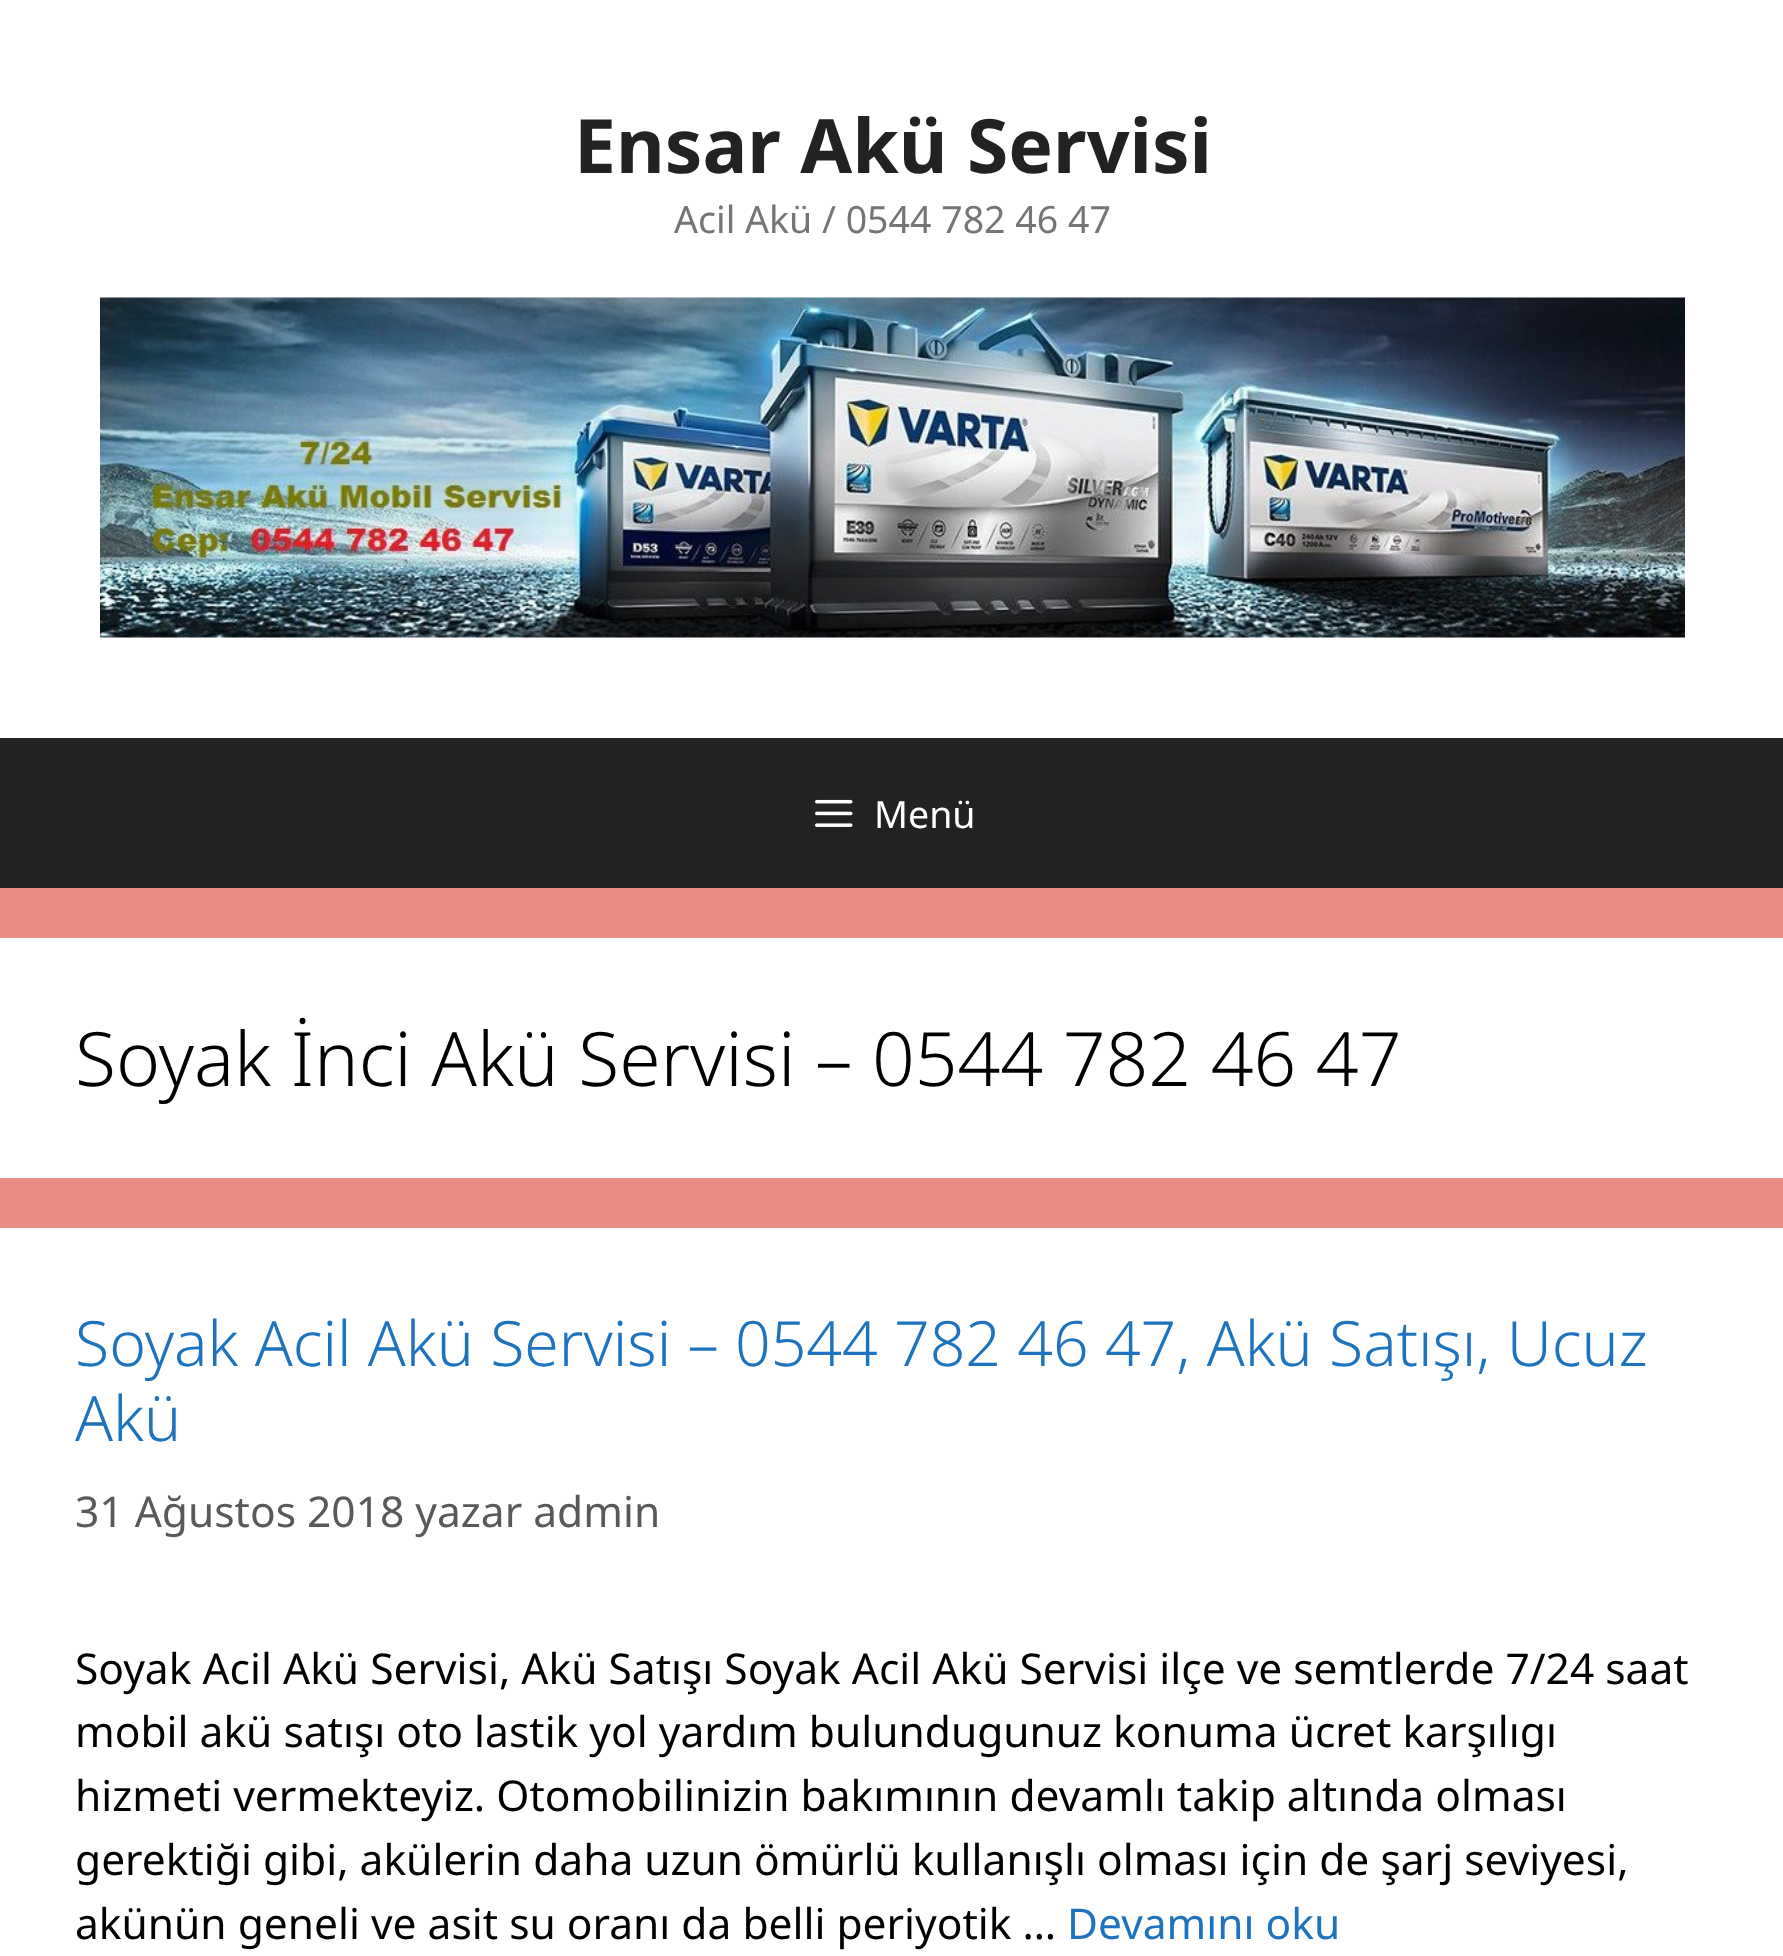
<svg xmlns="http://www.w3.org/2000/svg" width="1783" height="1956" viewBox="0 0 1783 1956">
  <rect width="100%" height="100%" fill="#e88e84"/>
  <path d="M0 0h1783v738H0z" fill="#fff"/>
  <image x="100" y="297" width="1585" height="341" href="img/1.png"/>
  <path d="M0 738h1783v150H0z" fill="#222"/>
  <image x="815" y="799" width="38" height="28" href="img/2.png"/>
  <path d="M0 938h1783v240H0z" fill="#fff"/>
  <path d="M0 1228h1783v728H0z" fill="#fff"/>
  <text x="574" y="173" font-family="Noto Sans" font-size="75" font-weight="bold" fill="#222">Ensar Akü Servisi</text>
  <text x="674" y="233" font-family="Noto Sans" font-size="37.5" fill="#757575">Acil Akü / 0544 782 46 47</text>
  <text x="874" y="828" font-family="Noto Sans" font-size="37.5" fill="#fff">Menü</text>
  <text x="75" y="1086" font-family="Noto Sans" font-size="75" font-weight="300" fill="#000">Soyak İnci Akü Servisi – 0544 782 46 47</text>
  <g font-family="Noto Sans" font-size="62.5" font-weight="300" fill="#1e73be">
    <text x="75" y="1366">Soyak Acil Akü Servisi – 0544 782 46 47, Akü Satışı, Ucuz</text>
    <text x="75" y="1441">Akü</text>
  </g>
  <text x="75" y="1527" font-family="Noto Sans" font-size="42.5" fill="#595959">31 Ağustos 2018 yazar admin</text>
  <g font-family="Noto Sans" font-size="42.5" fill="#000">
    <text x="75" y="1684">Soyak Acil Akü Servisi, Akü Satışı Soyak Acil Akü Servisi ilçe ve semtlerde 7/24 saat</text>
    <text x="75" y="1747">mobil akü satışı oto lastik yol yardım bulundugunuz konuma ücret karşılıgı</text>
    <text x="75" y="1811">hizmeti vermekteyiz. Otomobilinizin bakımının devamlı takip altında olması</text>
    <text x="75" y="1875">gerektiği gibi, akülerin daha uzun ömürlü kullanışlı olması için de şarj seviyesi,</text>
    <text x="75" y="1939">akünün geneli ve asit su oranı da belli periyotik …</text>
  </g>
  <text x="1067" y="1939" font-family="Noto Sans" font-size="42.5" fill="#1e73be">Devamını oku</text>
</svg>
